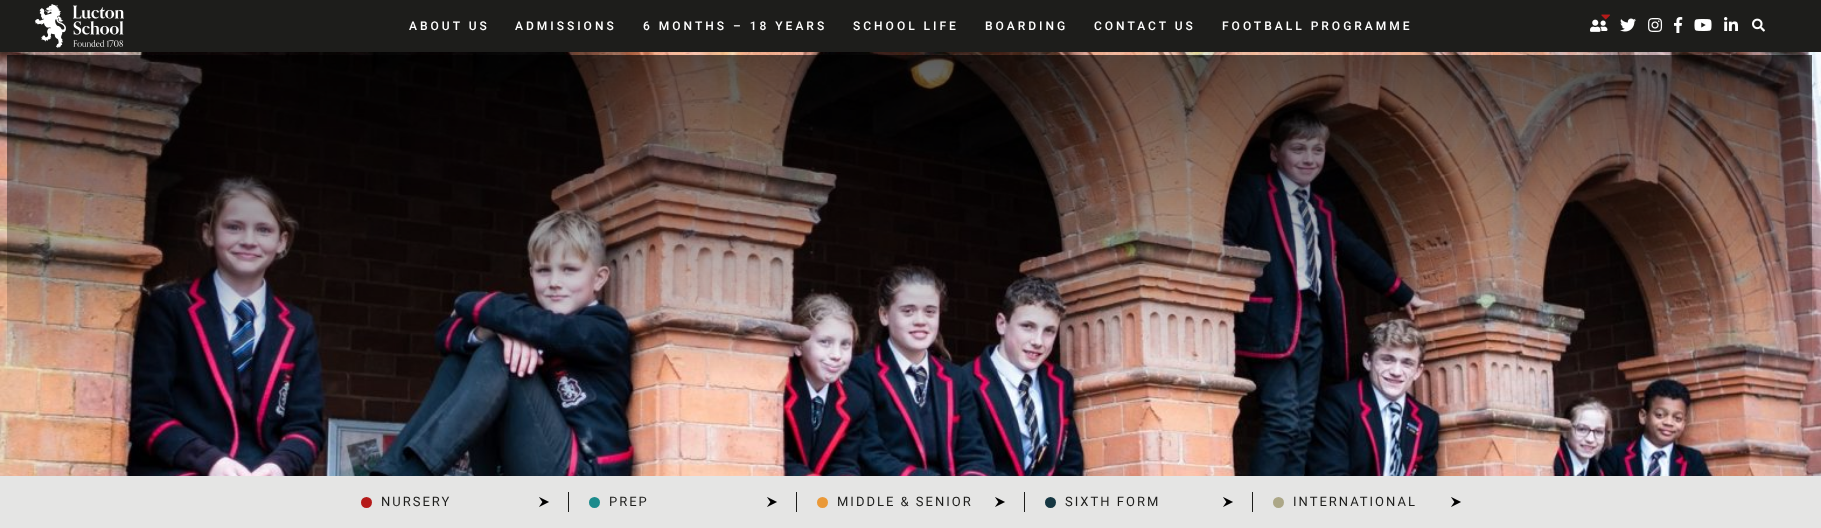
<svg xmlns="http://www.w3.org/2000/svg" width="1821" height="528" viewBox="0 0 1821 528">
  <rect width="100%" height="100%" fill="#fff"/>
  <path d="M0 0h1821v52H0z" fill="#1d1d1b"/>
  <image x="35" y="4" width="89" height="44" href="img/1.png"/>
  <image x="1590" y="19" width="18" height="13" href="img/3.png"/>
  <image x="1601" y="14" width="9" height="6" href="img/2.png"/>
  <image x="1620" y="18" width="16" height="14" href="img/4.png"/>
  <image x="1648" y="18" width="15" height="14" href="img/5.png"/>
  <image x="1674" y="17" width="9" height="16" href="img/6.png"/>
  <image x="1694" y="19" width="18" height="12" href="img/7.png"/>
  <image x="1724" y="17" width="14" height="14" href="img/8.png"/>
  <image x="1752" y="18" width="13" height="14" href="img/9.png"/>
  <image x="0" y="52" width="1821" height="424" href="img/10.png"/>
  <image x="7" y="55" width="1805" height="421" href="img/11.png"/>
  <path d="M0 476h1821v52H0z" fill="#e5e5e4"/>
  <circle cx="366.5" cy="502.5" r="5.5" fill="#b51a19"/>
  <image x="539" y="497" width="10" height="10" href="img/12.png"/>
  <path d="M568 492h1v20H568z" fill="#1d1d1b"/>
  <circle cx="594.5" cy="502.5" r="5.5" fill="#1c8b8c"/>
  <image x="767" y="497" width="10" height="10" href="img/12.png"/>
  <path d="M796 492h1v20H796z" fill="#1d1d1b"/>
  <circle cx="822.5" cy="502.5" r="5.5" fill="#ea9938"/>
  <image x="995" y="497" width="10" height="10" href="img/12.png"/>
  <path d="M1024 492h1v20H1024z" fill="#1d1d1b"/>
  <circle cx="1050.5" cy="502.5" r="5.5" fill="#153641"/>
  <image x="1223" y="497" width="10" height="10" href="img/12.png"/>
  <path d="M1252 492h1v20H1252z" fill="#1d1d1b"/>
  <circle cx="1278.5" cy="502.5" r="5.5" fill="#aca787"/>
  <image x="1451" y="497" width="10" height="10" href="img/12.png"/>
  <g font-family="Roboto" font-size="12" font-weight="500" letter-spacing="3" fill="#fff">
    <text x="409" y="30">ABOUT US</text>
    <text x="515" y="30">ADMISSIONS</text>
    <text x="643" y="30">6 MONTHS – 18 YEARS</text>
    <text x="853" y="30">SCHOOL LIFE</text>
    <text x="985" y="30">BOARDING</text>
    <text x="1094" y="30">CONTACT US</text>
    <text x="1222" y="30">FOOTBALL PROGRAMME</text>
  </g>
  <g font-family="Roboto" font-size="13" letter-spacing="2" fill="#1d1d1b">
    <text x="381" y="506">NURSERY</text>
    <text x="609" y="506">PREP</text>
    <text x="837" y="506">MIDDLE &amp; SENIOR</text>
    <text x="1065" y="506">SIXTH FORM</text>
    <text x="1293" y="506">INTERNATIONAL</text>
  </g>
</svg>
